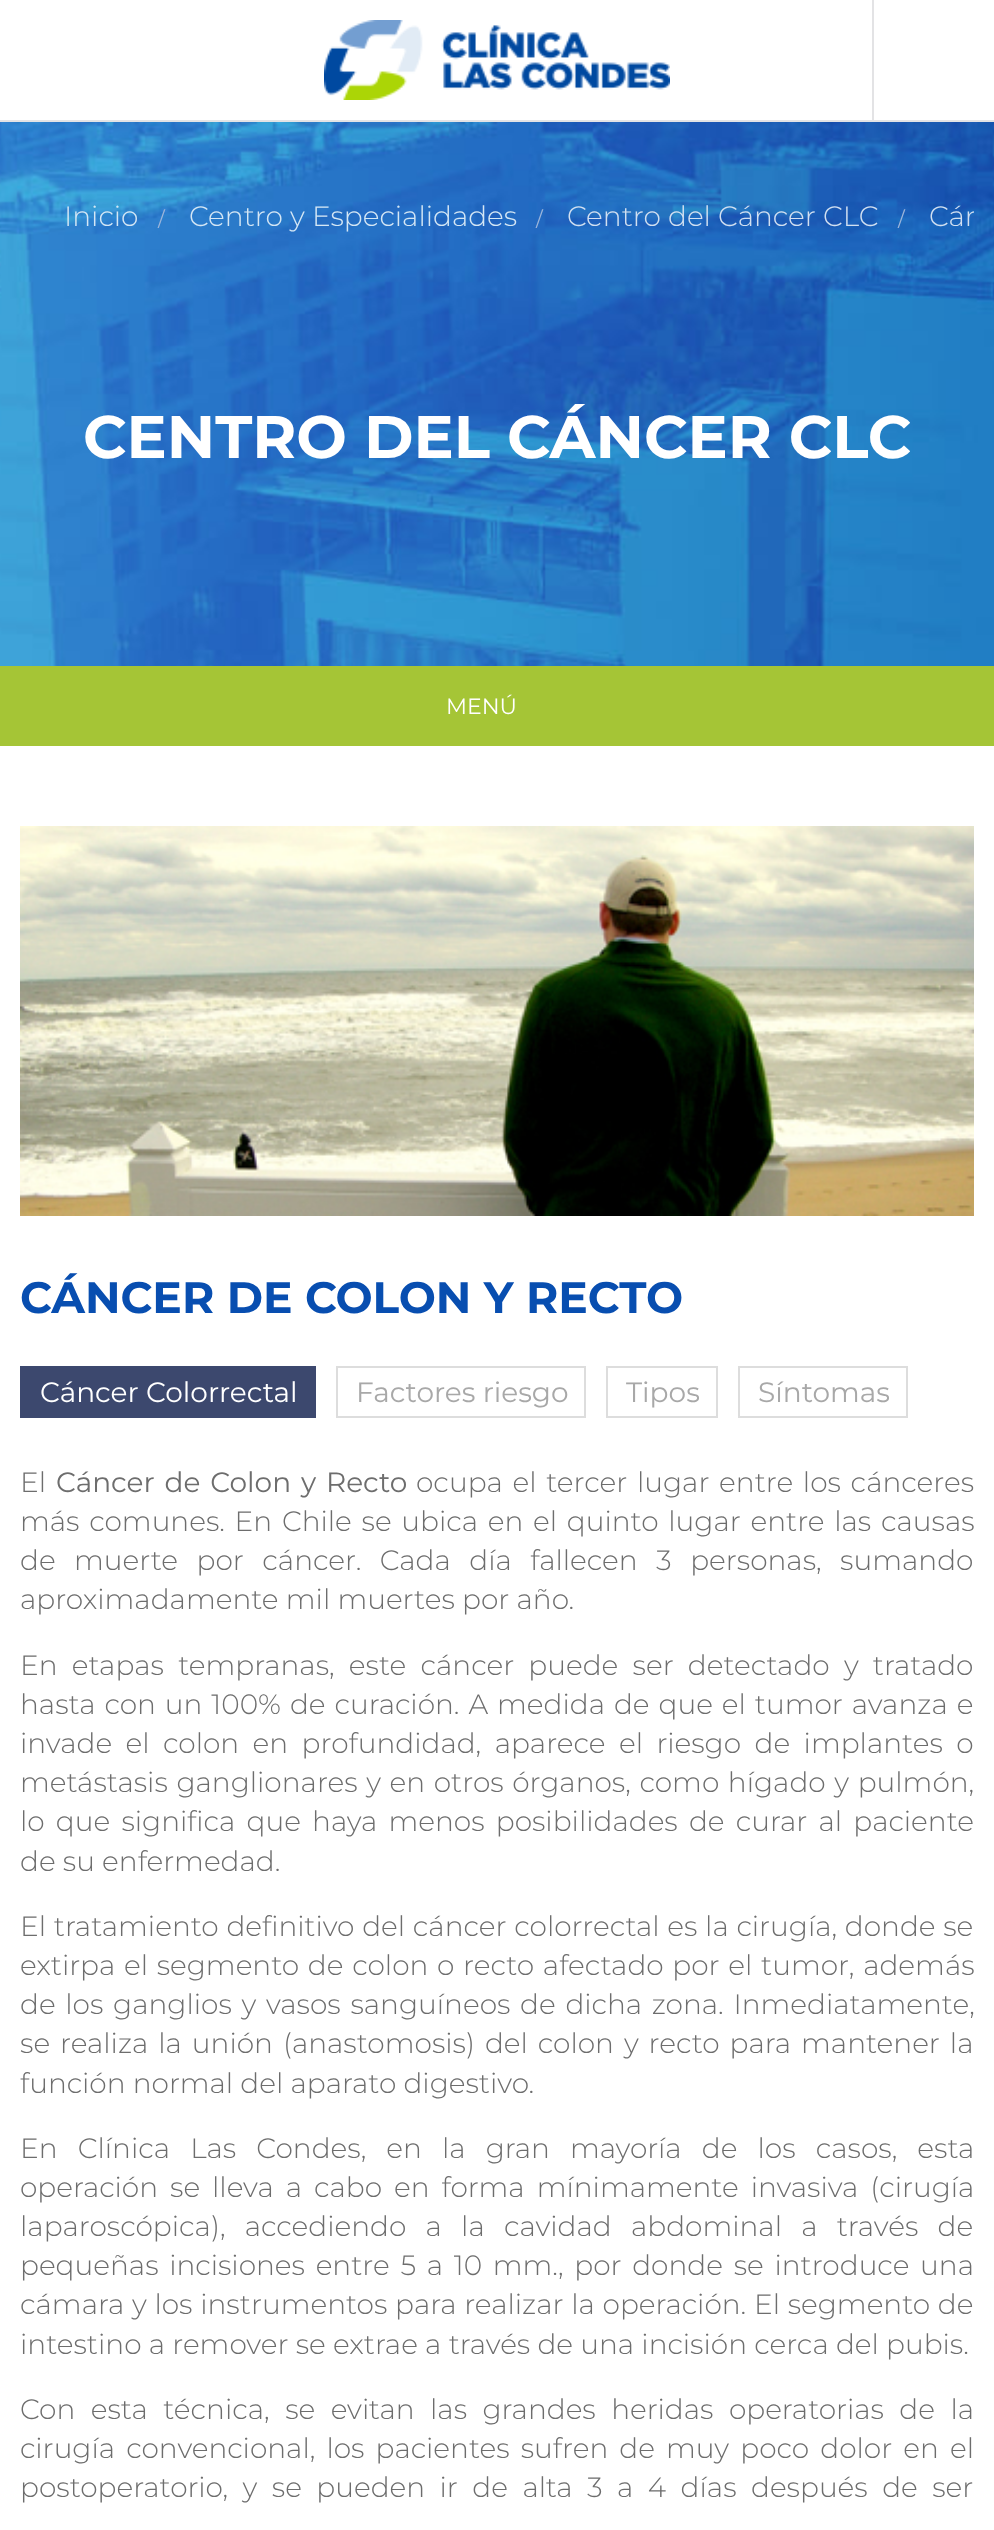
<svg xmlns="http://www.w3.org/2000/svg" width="994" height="2530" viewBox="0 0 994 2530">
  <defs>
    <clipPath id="clip1"><path d="M20 182h954v68H20z"/></clipPath>
  </defs>
  <rect width="100%" height="100%" fill="#fff"/>
  <path d="M0 120h994v2H0z" fill="#e3e3e5"/>
  <image x="324" y="20" width="346" height="80" href="img/1.png"/>
  <path d="M872 0h2v120H872z" fill="#e3e3e5"/>
  <image x="0" y="122" width="994" height="544" href="img/2.png"/>
  <path d="M0 666h994v80H0z" fill="#a5c536"/>
  <image x="20" y="826" width="954" height="390" href="img/3.png"/>
  <path d="M20 1366h296v52H20z" fill="#3c486e"/>
  <path d="M337 1367h248v50H337z" fill="none" stroke="#ddd" stroke-width="2"/>
  <path d="M607 1367h110v50H607z" fill="none" stroke="#ddd" stroke-width="2"/>
  <path d="M739 1367h168v50H739z" fill="none" stroke="#ddd" stroke-width="2"/>
  <text x="64" y="226" font-family="Montserrat" font-size="28" font-weight="300" fill="#d5e7f5">Inicio</text>
  <text x="158" y="226" font-family="Montserrat" font-size="20" fill="#9cb5da">/</text>
  <text x="189" y="226" font-family="Montserrat" font-size="28" font-weight="300" fill="#d5e7f5">Centro y Especialidades</text>
  <text x="536" y="226" font-family="Montserrat" font-size="20" fill="#9cb5da">/</text>
  <text x="567" y="226" font-family="Montserrat" font-size="28" font-weight="300" fill="#d2e0f1">Centro del Cáncer CLC</text>
  <text x="898" y="226" font-family="Montserrat" font-size="20" fill="#9cb5da">/</text>
  <g clip-path="url(#clip1)">
    <text x="929" y="226" font-family="Montserrat" font-size="28" font-weight="300" fill="#d2e0f1">Cán</text>
  </g>
  <text x="83" y="458" font-family="Montserrat" font-size="60" font-weight="bold" fill="#fff">CENTRO DEL CÁNCER CLC</text>
  <text x="446" y="714" font-family="Montserrat" font-size="22" fill="#fff">MENÚ</text>
  <text x="20" y="1313" font-family="Montserrat" font-size="44" font-weight="bold" fill="#084eb0">CÁNCER DE COLON Y RECTO</text>
  <text x="40" y="1402" font-family="Montserrat" font-size="28" fill="#fff">Cáncer Colorrectal</text>
  <g font-family="Montserrat" font-size="28" fill="#a8a8a8">
    <text x="356" y="1402">Factores riesgo</text>
    <text x="626" y="1402">Tipos</text>
    <text x="758" y="1402">Síntomas</text>
  </g>
  <text x="20" y="1492" font-family="Montserrat" font-size="28" font-weight="300" fill="#6d6d6d">El</text>
  <text x="56" y="1492" word-spacing="2.5" font-family="Montserrat" font-size="28" fill="#6d6d6d">Cáncer de Colon y Recto</text>
  <g font-family="Montserrat" font-size="28" font-weight="300" fill="#6d6d6d">
    <text x="416" y="1492" word-spacing="2.5">ocupa el tercer lugar entre los cánceres</text>
    <text x="20" y="1531" word-spacing="2.5">más comunes. En Chile se ubica en el quinto lugar entre las causas</text>
    <text x="20" y="1570" word-spacing="11.25">de muerte por cáncer. Cada día fallecen 3 personas, sumando</text>
    <text x="20" y="1609">aproximadamente mil muertes por año.</text>
    <text x="20" y="1675" word-spacing="7">En etapas tempranas, este cáncer puede ser detectado y tratado</text>
    <text x="20" y="1714" word-spacing="1.75">hasta con un 100% de curación. A medida de que el tumor avanza e</text>
    <text x="20" y="1753" word-spacing="6.25">invade el colon en profundidad, aparece el riesgo de implantes o</text>
    <text x="20" y="1792" word-spacing="1.4">metástasis ganglionares y en otros órganos, como hígado y pulmón,</text>
    <text x="20" y="1831" word-spacing="4">lo que significa que haya menos posibilidades de curar al paciente</text>
    <text x="20" y="1871">de su enfermedad.</text>
    <text x="20" y="1936" word-spacing="0.5">El tratamiento definitivo del cáncer colorrectal es la cirugía, donde se</text>
    <text x="20" y="1975" word-spacing="1.5">extirpa el segmento de colon o recto afectado por el tumor, además</text>
    <text x="20" y="2014" word-spacing="2.5">de los ganglios y vasos sanguíneos de dicha zona. Inmediatamente,</text>
    <text x="20" y="2053" word-spacing="2.75">se realiza la unión (anastomosis) del colon y recto para mantener la</text>
    <text x="20" y="2093">función normal del aparato digestivo.</text>
    <text x="20" y="2158" word-spacing="12.9">En Clínica Las Condes, en la gran mayoría de los casos, esta</text>
    <text x="20" y="2197" word-spacing="4.75">operación se lleva a cabo en forma mínimamente invasiva (cirugía</text>
    <text x="20" y="2236" word-spacing="12">laparoscópica), accediendo a la cavidad abdominal a través de</text>
    <text x="20" y="2275" word-spacing="3.5">pequeñas incisiones entre 5 a 10 mm., por donde se introduce una</text>
    <text x="20" y="2314" word-spacing="0.5">cámara y los instrumentos para realizar la operación. El segmento de</text>
    <text x="20" y="2354">intestino a remover se extrae a través de una incisión cerca del pubis.</text>
    <text x="20" y="2419" word-spacing="8.25">Con esta técnica, se evitan las grandes heridas operatorias de la</text>
    <text x="20" y="2458" word-spacing="3.9">cirugía convencional, los pacientes sufren de muy poco dolor en el</text>
    <text x="20" y="2497" word-spacing="7.25">postoperatorio, y se pueden ir de alta 3 a 4 días después de ser</text>
  </g>
</svg>
